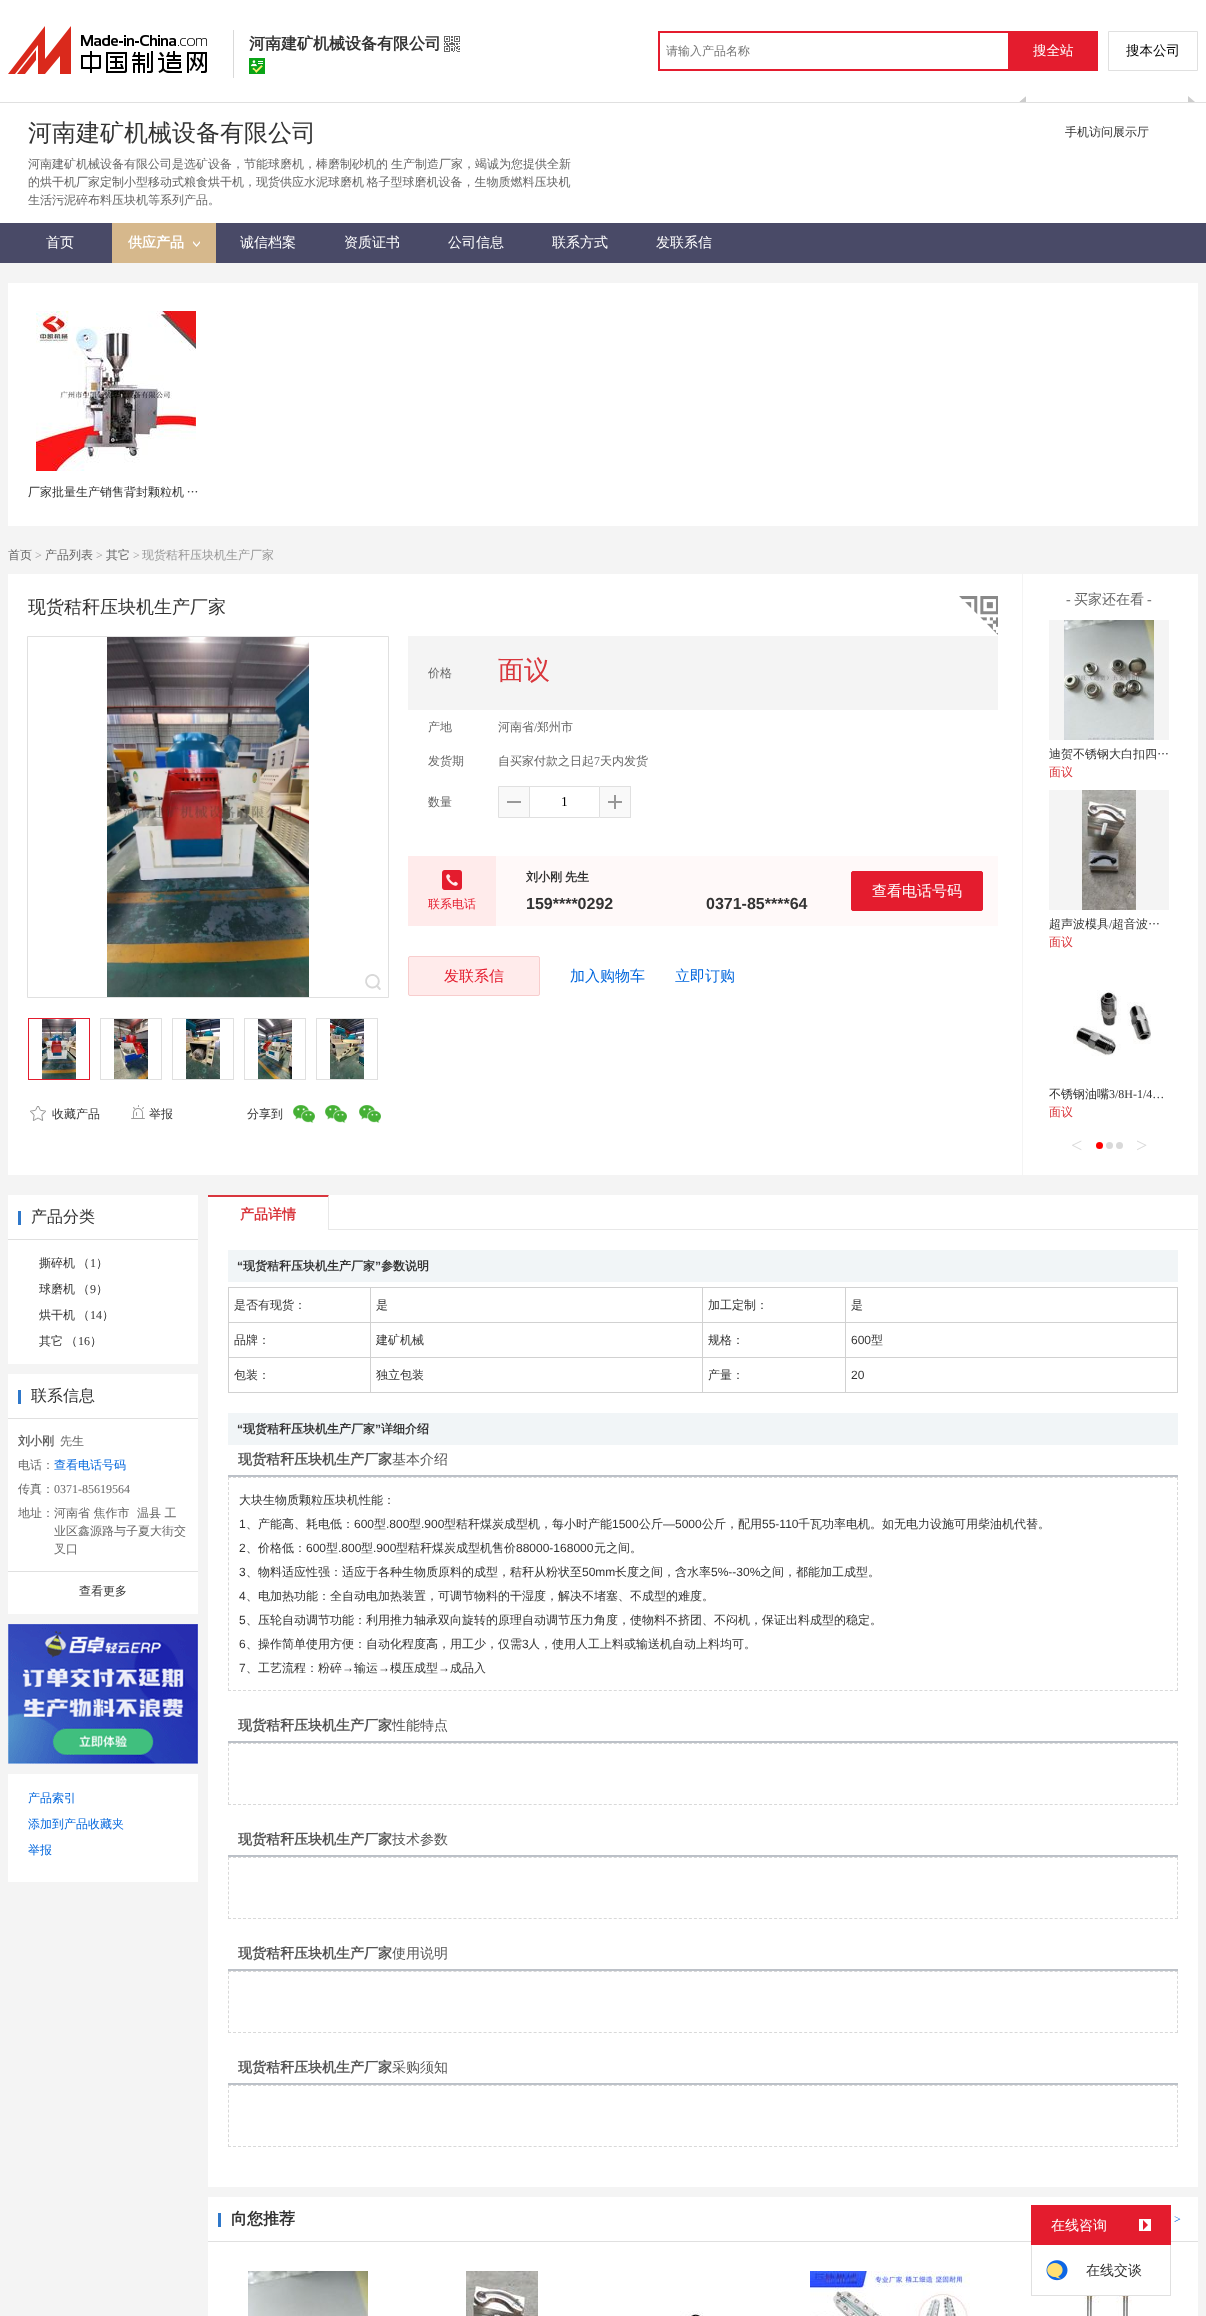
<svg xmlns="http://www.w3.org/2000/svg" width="1206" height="2316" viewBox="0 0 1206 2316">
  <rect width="100%" height="100%" fill="#f4f4f4"/>
  <path d="M0 0h1206v102H0z" fill="#fff"/>
  <image x="8" y="26" width="199" height="48" href="img/1.png"/>
  <path d="M233 30h1v48H233z" fill="#d9d9d9"/>
  <image x="444" y="36" width="16" height="16" href="img/2.png"/>
  <image x="249" y="58" width="16" height="16" href="img/3.png"/>
  <path d="M658 31h350v2H658z" fill="#e41c2e"/>
  <path d="M658 69h350v2H658z" fill="#e41c2e"/>
  <path d="M658 31h2v40H658z" fill="#e41c2e"/>
  <path d="M1008 31h90v40H1008z" fill="#e41c2e"/>
  <path d="M1108.5 31.5h89v39H1108.5z" fill="none" stroke="#e0e0e0"/>
  <path d="M0 103h1206v120H0z" fill="#fff"/>
  <path d="M0 102h1206v1H0z" fill="#e0e0e0"/>
  <path d="M1026 102H1019L1026 96Z" fill="#ccc"/>
  <path d="M1019 102V96H1026Z" fill="#fff"/>
  <path d="M1195 102H1188V96Z" fill="#ccc"/>
  <path d="M0 223h1206v40H0z" fill="#494a67"/>
  <path d="M112 223h104v40H112z" fill="#d6b88c"/>
  <image x="193" y="241" width="7" height="6" href="img/4.png"/>
  <path d="M8 283h1190v243H8z" fill="#fff"/>
  <image x="36" y="311" width="160" height="160" href="img/5.png"/>
  <path d="M8 574h1190v601H8z" fill="#fff"/>
  <path d="M1022 574h1v601H1022z" fill="#f4f4f4"/>
  <path d="M1049 620h120v120H1049z" fill="#f4f4f4"/>
  <image x="1064" y="620" width="90" height="120" href="img/6.png"/>
  <path d="M1049 790h120v120H1049z" fill="#f4f4f4"/>
  <image x="1082" y="790" width="54" height="120" href="img/7.png"/>
  <image x="1049" y="960" width="120" height="120" href="img/8.png"/>
  <circle cx="1099.5" cy="1145.5" r="3.5" fill="#f00"/>
  <circle cx="1109.5" cy="1145.5" r="3.5" fill="#d9d9d9"/>
  <circle cx="1119.5" cy="1145.5" r="3.5" fill="#d9d9d9"/>
  <image x="959" y="596" width="39" height="39" href="img/9.png"/>
  <path d="M408 636h590v74H408z" fill="#f4f4f4"/>
  <path d="M498.5 786.5h31v31H498.5z" fill="#f9f9f9" stroke="#e0e0e0"/>
  <path d="M507 801h14v2H507z" fill="#999"/>
  <path d="M529.5 786.5h70v31H529.5z" fill="none" stroke="#e0e0e0"/>
  <path d="M600 787h30v30H600z" fill="#f9f9f9"/>
  <path d="M600 786h31v1H600z" fill="#e0e0e0"/>
  <path d="M630 786h1v32H630z" fill="#e0e0e0"/>
  <path d="M600 817h31v1H600z" fill="#e0e0e0"/>
  <image x="608" y="795" width="14" height="14" href="img/10.png"/>
  <path d="M496 856h502v70H496z" fill="#fff9f9"/>
  <rect x="851.5" y="871.5" width="131" height="39" rx="1.5" fill="#e41c2e" stroke="#e41c2e"/>
  <path d="M408 856h88v70H408z" fill="#ffebeb"/>
  <image x="442" y="870" width="20" height="20" href="img/11.png"/>
  <rect x="408.5" y="956.5" width="131" height="39" rx="1.5" fill="#ffebeb" stroke="#f8cdcd"/>
  <path d="M27.5 636.5h361v361H27.5z" fill="none" stroke="#e0e0e0"/>
  <image x="107" y="637" width="202" height="360" href="img/12.png"/>
  <image x="365" y="974" width="16" height="16" href="img/13.png"/>
  <path d="M28 1018h62v1H28z" fill="#e41c2e"/>
  <path d="M89 1018h1v62H89z" fill="#e41c2e"/>
  <path d="M28 1079h62v1H28z" fill="#e41c2e"/>
  <path d="M28 1018h1v62H28z" fill="#e41c2e"/>
  <image x="42" y="1019" width="34" height="60" href="img/14.png"/>
  <path d="M100 1018h62v1H100z" fill="#e0e0e0"/>
  <path d="M161 1018h1v62H161z" fill="#e0e0e0"/>
  <path d="M100 1079h62v1H100z" fill="#e0e0e0"/>
  <path d="M100 1018h1v62H100z" fill="#e0e0e0"/>
  <image x="114" y="1019" width="34" height="60" href="img/15.png"/>
  <path d="M172 1018h62v1H172z" fill="#e0e0e0"/>
  <path d="M233 1018h1v62H233z" fill="#e0e0e0"/>
  <path d="M172 1079h62v1H172z" fill="#e0e0e0"/>
  <path d="M172 1018h1v62H172z" fill="#e0e0e0"/>
  <image x="186" y="1019" width="34" height="60" href="img/16.png"/>
  <path d="M244 1018h62v1H244z" fill="#e0e0e0"/>
  <path d="M305 1018h1v62H305z" fill="#e0e0e0"/>
  <path d="M244 1079h62v1H244z" fill="#e0e0e0"/>
  <path d="M244 1018h1v62H244z" fill="#e0e0e0"/>
  <image x="258" y="1019" width="34" height="60" href="img/17.png"/>
  <path d="M316 1018h62v1H316z" fill="#e0e0e0"/>
  <path d="M377 1018h1v62H377z" fill="#e0e0e0"/>
  <path d="M316 1079h62v1H316z" fill="#e0e0e0"/>
  <path d="M316 1018h1v62H316z" fill="#e0e0e0"/>
  <image x="330" y="1019" width="34" height="60" href="img/18.png"/>
  <image x="30" y="1106" width="16" height="15" href="img/19.png"/>
  <image x="131" y="1105" width="14" height="14" href="img/20.png"/>
  <image x="293" y="1105" width="22" height="18" href="img/21.png"/>
  <image x="325" y="1105" width="22" height="18" href="img/21.png"/>
  <image x="359" y="1105" width="22" height="18" href="img/21.png"/>
  <path d="M8 1195h190v169H8z" fill="#fff"/>
  <path d="M8 1239h190v1H8z" fill="#e0e0e0"/>
  <path d="M18 1211h3v14H18z" fill="#2f78ca"/>
  <path d="M8 1374h190v240H8z" fill="#fff"/>
  <path d="M8 1418h190v1H8z" fill="#e0e0e0"/>
  <path d="M18 1390h3v14H18z" fill="#2f78ca"/>
  <path d="M8 1571h190v1H8z" fill="#e0e0e0"/>
  <image x="8" y="1624" width="190" height="140" href="img/22.png"/>
  <path d="M8 1774h190v108H8z" fill="#fff"/>
  <path d="M208 1195h990v992H208z" fill="#fff"/>
  <path d="M329 1229h869v1H329z" fill="#e8e8e8"/>
  <path d="M208 1195H329L328 1197H208Z" fill="#d9363e"/>
  <path d="M329 1195V1230H328V1197Z" fill="#e8e8e8"/>
  <path d="M228 1250h950v32H228z" fill="#f1f5f7"/>
  <path d="M228 1287h950v1H228z" fill="#d1d1d1"/>
  <path d="M228 1287h1v106H228z" fill="#d1d1d1"/>
  <path d="M1177 1287h1v106H1177z" fill="#d1d1d1"/>
  <path d="M845 1392h333v1H845z" fill="#d1d1d1"/>
  <path d="M845 1357h1v36H845z" fill="#d1d1d1"/>
  <path d="M845 1357h333v1H845z" fill="#d1d1d1"/>
  <path d="M845 1322h1v36H845z" fill="#d1d1d1"/>
  <path d="M845 1322h333v1H845z" fill="#d1d1d1"/>
  <path d="M845 1287h1v36H845z" fill="#d1d1d1"/>
  <path d="M702 1392h144v1H702z" fill="#d1d1d1"/>
  <path d="M702 1357h1v36H702z" fill="#d1d1d1"/>
  <path d="M702 1357h144v1H702z" fill="#d1d1d1"/>
  <path d="M702 1322h1v36H702z" fill="#d1d1d1"/>
  <path d="M702 1322h144v1H702z" fill="#d1d1d1"/>
  <path d="M702 1287h1v36H702z" fill="#d1d1d1"/>
  <path d="M370 1392h333v1H370z" fill="#d1d1d1"/>
  <path d="M370 1357h1v36H370z" fill="#d1d1d1"/>
  <path d="M370 1357h333v1H370z" fill="#d1d1d1"/>
  <path d="M370 1322h1v36H370z" fill="#d1d1d1"/>
  <path d="M370 1322h333v1H370z" fill="#d1d1d1"/>
  <path d="M370 1287h1v36H370z" fill="#d1d1d1"/>
  <path d="M228 1322h143v1H228z" fill="#d1d1d1"/>
  <path d="M228 1357h143v1H228z" fill="#d1d1d1"/>
  <path d="M228 1392h143v1H228z" fill="#d1d1d1"/>
  <path d="M228 1413h950v32H228z" fill="#f1f5f7"/>
  <path d="M228 1475h950v2H228z" fill="#bcc1c8"/>
  <path d="M228 1477.5H1178" fill="none" stroke="#d9d9d9" stroke-dasharray="3 2.01"/>
  <path d="M1177.5 1477V1691" fill="none" stroke="#d9d9d9" stroke-dasharray="3 2.02"/>
  <path d="M228 1690.5H1178" fill="none" stroke="#d9d9d9" stroke-dasharray="3 2.01"/>
  <path d="M228.5 1477V1691" fill="none" stroke="#d9d9d9" stroke-dasharray="3 2.02"/>
  <path d="M228 1741h950v2H228z" fill="#bcc1c8"/>
  <path d="M228 1743.5H1178" fill="none" stroke="#d9d9d9" stroke-dasharray="3 2.01"/>
  <path d="M1177.5 1743V1805" fill="none" stroke="#d9d9d9" stroke-dasharray="3 1.92"/>
  <path d="M228 1804.5H1178" fill="none" stroke="#d9d9d9" stroke-dasharray="3 2.01"/>
  <path d="M228.5 1743V1805" fill="none" stroke="#d9d9d9" stroke-dasharray="3 1.92"/>
  <path d="M228 1855h950v2H228z" fill="#bcc1c8"/>
  <path d="M228 1857.5H1178" fill="none" stroke="#d9d9d9" stroke-dasharray="3 2.01"/>
  <path d="M1177.5 1857V1919" fill="none" stroke="#d9d9d9" stroke-dasharray="3 1.92"/>
  <path d="M228 1918.5H1178" fill="none" stroke="#d9d9d9" stroke-dasharray="3 2.01"/>
  <path d="M228.5 1857V1919" fill="none" stroke="#d9d9d9" stroke-dasharray="3 1.92"/>
  <path d="M228 1969h950v2H228z" fill="#bcc1c8"/>
  <path d="M228 1971.5H1178" fill="none" stroke="#d9d9d9" stroke-dasharray="3 2.01"/>
  <path d="M1177.5 1971V2033" fill="none" stroke="#d9d9d9" stroke-dasharray="3 1.92"/>
  <path d="M228 2032.5H1178" fill="none" stroke="#d9d9d9" stroke-dasharray="3 2.01"/>
  <path d="M228.5 1971V2033" fill="none" stroke="#d9d9d9" stroke-dasharray="3 1.92"/>
  <path d="M228 2083h950v2H228z" fill="#bcc1c8"/>
  <path d="M228 2085.5H1178" fill="none" stroke="#d9d9d9" stroke-dasharray="3 2.01"/>
  <path d="M1177.5 2085V2147" fill="none" stroke="#d9d9d9" stroke-dasharray="3 1.92"/>
  <path d="M228 2146.5H1178" fill="none" stroke="#d9d9d9" stroke-dasharray="3 2.01"/>
  <path d="M228.5 2085V2147" fill="none" stroke="#d9d9d9" stroke-dasharray="3 1.92"/>
  <path d="M208 2197h990v119H208z" fill="#fff"/>
  <path d="M208 2241h990v1H208z" fill="#e0e0e0"/>
  <path d="M218 2213h3v14H218z" fill="#2f78ca"/>
  <image x="248" y="2271" width="120" height="45" href="img/23.png"/>
  <image x="466" y="2271" width="72" height="45" href="img/24.png"/>
  <image x="680" y="2311" width="23" height="5" href="img/25.png"/>
  <image x="810" y="2271" width="160" height="45" href="img/26.png"/>
  <image x="1084" y="2296" width="48" height="20" href="img/27.png"/>
  <path d="M1031 2205h140v40H1031z" fill="#e41c2e"/>
  <path d="M1139 2219h12v12H1139z" fill="#fff"/>
  <path d="M1143 2230V2220L1148 2225Z" fill="#e41c2e"/>
  <path d="M1170 2245h1v51H1170z" fill="#e0e0e0"/>
  <path d="M1031 2295h140v1H1031z" fill="#e0e0e0"/>
  <path d="M1031 2245h1v51H1031z" fill="#e0e0e0"/>
  <image x="1046" y="2260" width="22" height="21" href="img/28.png"/>
  <text x="249" y="49" font-family="WenQuanYi Zen Hei" font-size="16" font-weight="bold" fill="#333">河南建矿机械设备有限公司</text>
  <text x="666" y="55" font-family="WenQuanYi Zen Hei" font-size="12" font-weight="500" fill="#757575">请输入产品名称</text>
  <text x="1033" y="55" font-family="WenQuanYi Zen Hei" font-size="13.5" font-weight="500" fill="#fff">搜全站</text>
  <text x="1126" y="55" font-family="WenQuanYi Zen Hei" font-size="13.5" font-weight="500" fill="#000">搜本公司</text>
  <text x="28" y="141" font-family="WenQuanYi Zen Hei" font-size="24" font-weight="500" fill="#333">河南建矿机械设备有限公司</text>
  <g font-family="WenQuanYi Zen Hei" font-size="12" font-weight="500" fill="#666">
    <text x="28" y="168">河南建矿机械设备有限公司是选矿设备，节能球磨机，棒磨制砂机的</text>
    <text x="391" y="168">生产制造厂家，竭诚为您提供全新</text>
    <text x="28" y="186" word-spacing="-1">的烘干机厂家定制小型移动式粮食烘干机，现货供应水泥球磨机 格子型球磨机设备，生物质燃料压块机</text>
    <text x="28" y="204">生活污泥碎布料压块机等系列产品。</text>
  </g>
  <text x="1065" y="136" font-family="WenQuanYi Zen Hei" font-size="12" font-weight="500" fill="#333">手机访问展示厅</text>
  <text x="46" y="247" font-family="WenQuanYi Zen Hei" font-size="14" font-weight="500" fill="#fff">首页</text>
  <text x="128" y="247" font-family="WenQuanYi Zen Hei" font-size="14" font-weight="bold" fill="#fff">供应产品</text>
  <g font-family="WenQuanYi Zen Hei" font-size="14" font-weight="500" fill="#fff">
    <text x="240" y="247">诚信档案</text>
    <text x="344" y="247">资质证书</text>
    <text x="448" y="247">公司信息</text>
    <text x="552" y="247">联系方式</text>
    <text x="656" y="247">发联系信</text>
  </g>
  <text x="28" y="496" word-spacing="-1" font-family="WenQuanYi Zen Hei" font-size="12" font-weight="500" fill="#333">厂家批量生产销售背封颗粒机 …</text>
  <text x="8" y="559" font-family="WenQuanYi Zen Hei" font-size="12" font-weight="500" fill="#666">首页</text>
  <text x="35" y="559" font-family="Liberation Serif" font-size="12" fill="#999">&gt;</text>
  <text x="45" y="559" font-family="WenQuanYi Zen Hei" font-size="12" font-weight="500" fill="#666">产品列表</text>
  <text x="96" y="559" font-family="Liberation Serif" font-size="12" fill="#999">&gt;</text>
  <text x="106" y="559" font-family="WenQuanYi Zen Hei" font-size="12" font-weight="500" fill="#666">其它</text>
  <text x="133" y="559" font-family="Liberation Serif" font-size="12" fill="#999">&gt;</text>
  <text x="142" y="559" font-family="WenQuanYi Zen Hei" font-size="12" font-weight="500" fill="#999">现货秸秆压块机生产厂家</text>
  <text x="28" y="613" font-family="WenQuanYi Zen Hei" font-size="18" font-weight="500" fill="#333">现货秸秆压块机生产厂家</text>
  <text x="1066" y="604" font-family="Liberation Serif" font-size="14" fill="#666">-</text>
  <text x="1074" y="604" font-family="WenQuanYi Zen Hei" font-size="14" font-weight="500" fill="#666">买家还在看</text>
  <text x="1147" y="604" font-family="Liberation Serif" font-size="14" fill="#666">-</text>
  <text x="1049" y="758" font-family="WenQuanYi Zen Hei" font-size="12" font-weight="500" fill="#333">迪贺不锈钢大白扣四…</text>
  <text x="1049" y="776" font-family="WenQuanYi Zen Hei" font-size="12" font-weight="500" fill="#d9363c">面议</text>
  <text x="1049" y="928" font-family="WenQuanYi Zen Hei" font-size="12" font-weight="500" fill="#333">超声波模具</text>
  <text x="1109" y="928" font-family="Liberation Serif" font-size="12" fill="#333">/</text>
  <text x="1112" y="928" font-family="WenQuanYi Zen Hei" font-size="12" font-weight="500" fill="#333">超音波…</text>
  <text x="1049" y="946" font-family="WenQuanYi Zen Hei" font-size="12" font-weight="500" fill="#d9363c">面议</text>
  <text x="1049" y="1098" font-family="WenQuanYi Zen Hei" font-size="12" font-weight="500" fill="#333">不锈钢油嘴</text>
  <text x="1109" y="1098" font-family="Liberation Serif" font-size="12" fill="#333">3/8H-1/4…</text>
  <text x="1049" y="1116" font-family="WenQuanYi Zen Hei" font-size="12" font-weight="500" fill="#d9363c">面议</text>
  <g font-family="Liberation Serif" font-size="20" fill="#d9d9d9">
    <text x="1071" y="1152">&lt;</text>
    <text x="1136" y="1152">&gt;</text>
  </g>
  <text x="428" y="677" font-family="WenQuanYi Zen Hei" font-size="12" font-weight="500" fill="#666">价格</text>
  <text x="498" y="679" font-family="WenQuanYi Zen Hei" font-size="26" font-weight="500" fill="#d9363c">面议</text>
  <g font-family="WenQuanYi Zen Hei" font-size="12" font-weight="500" fill="#666">
    <text x="428" y="731">产地</text>
    <text x="498" y="731">河南省</text>
  </g>
  <text x="534" y="731" font-family="Liberation Serif" font-size="12" fill="#666">/</text>
  <g font-family="WenQuanYi Zen Hei" font-size="12" font-weight="500" fill="#666">
    <text x="537" y="731">郑州市</text>
    <text x="428" y="765">发货期</text>
    <text x="498" y="765">自买家付款之日起</text>
  </g>
  <text x="594" y="765" font-family="Liberation Serif" font-size="12" fill="#666">7</text>
  <g font-family="WenQuanYi Zen Hei" font-size="12" font-weight="500" fill="#666">
    <text x="600" y="765">天内发货</text>
    <text x="428" y="806">数量</text>
  </g>
  <text x="561" y="806" font-family="Liberation Serif" font-size="13.5" fill="#000">1</text>
  <g font-family="WenQuanYi Zen Hei" font-size="12" font-weight="bold" fill="#333">
    <text x="526" y="881">刘小刚</text>
    <text x="565" y="881">先生</text>
  </g>
  <text x="872" y="896" font-family="WenQuanYi Zen Hei" font-size="15" font-weight="500" fill="#fff">查看电话号码</text>
  <text x="428" y="908" font-family="WenQuanYi Zen Hei" font-size="12" font-weight="500" fill="#e41c2e">联系电话</text>
  <g font-family="Liberation Sans" font-size="16" font-weight="bold" fill="#333">
    <text x="526" y="909">159****0292</text>
    <text x="706" y="909">0371-85****64</text>
  </g>
  <text x="444" y="981" font-family="WenQuanYi Zen Hei" font-size="15" font-weight="500" fill="#e41c2e">发联系信</text>
  <g font-family="WenQuanYi Zen Hei" font-size="15" font-weight="500" fill="#06d">
    <text x="570" y="981">加入购物车</text>
    <text x="675" y="981">立即订购</text>
  </g>
  <g font-family="WenQuanYi Zen Hei" font-size="12" font-weight="500" fill="#333">
    <text x="52" y="1118">收藏产品</text>
    <text x="149" y="1118">举报</text>
    <text x="247" y="1118">分享到</text>
  </g>
  <text x="31" y="1222" font-family="WenQuanYi Zen Hei" font-size="16" font-weight="500" fill="#333">产品分类</text>
  <text x="39" y="1267" word-spacing="-1" font-family="WenQuanYi Zen Hei" font-size="12" font-weight="500" fill="#333">撕碎机 （</text>
  <text x="90" y="1267" font-family="Liberation Serif" font-size="12" fill="#333">1</text>
  <g font-family="WenQuanYi Zen Hei" font-size="12" font-weight="500" fill="#333">
    <text x="96" y="1267">）</text>
    <text x="39" y="1293" word-spacing="-1">球磨机 （</text>
  </g>
  <text x="90" y="1293" font-family="Liberation Serif" font-size="12" fill="#333">9</text>
  <g font-family="WenQuanYi Zen Hei" font-size="12" font-weight="500" fill="#333">
    <text x="96" y="1293">）</text>
    <text x="39" y="1319" word-spacing="-1">烘干机 （</text>
  </g>
  <text x="90" y="1319" font-family="Liberation Serif" font-size="12" fill="#333">14</text>
  <g font-family="WenQuanYi Zen Hei" font-size="12" font-weight="500" fill="#333">
    <text x="102" y="1319">）</text>
    <text x="39" y="1345" word-spacing="-1">其它 （</text>
  </g>
  <text x="78" y="1345" font-family="Liberation Serif" font-size="12" fill="#333">16</text>
  <text x="90" y="1345" font-family="WenQuanYi Zen Hei" font-size="12" font-weight="500" fill="#333">）</text>
  <text x="31" y="1401" font-family="WenQuanYi Zen Hei" font-size="16" font-weight="500" fill="#333">联系信息</text>
  <text x="18" y="1445" font-family="WenQuanYi Zen Hei" font-size="12" font-weight="bold" fill="#666">刘小刚</text>
  <g font-family="WenQuanYi Zen Hei" font-size="12" font-weight="500" fill="#666">
    <text x="60" y="1445">先生</text>
    <text x="18" y="1469">电话：</text>
  </g>
  <text x="54" y="1469" font-family="WenQuanYi Zen Hei" font-size="12" font-weight="500" fill="#06d">查看电话号码</text>
  <text x="18" y="1493" font-family="WenQuanYi Zen Hei" font-size="12" font-weight="500" fill="#666">传真：</text>
  <text x="54" y="1493" font-family="Liberation Serif" font-size="12" fill="#666">0371-85619564</text>
  <g font-family="WenQuanYi Zen Hei" font-size="12" font-weight="500" fill="#666">
    <text x="18" y="1517">地址：</text>
    <text x="54" y="1517">河南省 焦作市</text>
    <text x="137" y="1517">温县 工</text>
    <text x="54" y="1535">业区鑫源路与子夏大街交</text>
    <text x="54" y="1553">叉口</text>
  </g>
  <text x="79" y="1595" font-family="WenQuanYi Zen Hei" font-size="12" font-weight="500" fill="#333">查看更多</text>
  <g font-family="WenQuanYi Zen Hei" font-size="12" font-weight="500" fill="#06d">
    <text x="28" y="1802">产品索引</text>
    <text x="28" y="1828">添加到产品收藏夹</text>
    <text x="28" y="1854">举报</text>
  </g>
  <text x="240" y="1219" font-family="WenQuanYi Zen Hei" font-size="14" font-weight="bold" fill="#d9363c">产品详情</text>
  <text x="237" y="1270" font-family="Liberation Sans" font-size="12" font-weight="bold" fill="#333">“</text>
  <text x="243" y="1270" font-family="WenQuanYi Zen Hei" font-size="12" font-weight="bold" fill="#333">现货秸秆压块机生产厂家</text>
  <text x="375" y="1270" font-family="Liberation Sans" font-size="12" font-weight="bold" fill="#333">”</text>
  <text x="381" y="1270" font-family="WenQuanYi Zen Hei" font-size="12" font-weight="bold" fill="#333">参数说明</text>
  <g font-family="WenQuanYi Zen Hei" font-size="12" font-weight="500" fill="#333">
    <text x="234" y="1309">是否有现货：</text>
    <text x="376" y="1309">是</text>
    <text x="708" y="1309">加工定制：</text>
    <text x="851" y="1309">是</text>
    <text x="234" y="1344">品牌：</text>
    <text x="376" y="1344">建矿机械</text>
    <text x="708" y="1344">规格：</text>
  </g>
  <text x="851" y="1344" font-family="Liberation Sans" font-size="12" fill="#333">600</text>
  <g font-family="WenQuanYi Zen Hei" font-size="12" font-weight="500" fill="#333">
    <text x="871" y="1344">型</text>
    <text x="234" y="1379">包装：</text>
    <text x="376" y="1379">独立包装</text>
    <text x="708" y="1379">产量：</text>
  </g>
  <text x="851" y="1379" font-family="Liberation Sans" font-size="12" fill="#333">20</text>
  <text x="237" y="1433" font-family="Liberation Sans" font-size="12" font-weight="bold" fill="#333">“</text>
  <text x="243" y="1433" font-family="WenQuanYi Zen Hei" font-size="12" font-weight="bold" fill="#333">现货秸秆压块机生产厂家</text>
  <text x="375" y="1433" font-family="Liberation Sans" font-size="12" font-weight="bold" fill="#333">”</text>
  <text x="381" y="1433" font-family="WenQuanYi Zen Hei" font-size="12" font-weight="bold" fill="#333">详细介绍</text>
  <text x="238" y="1464" font-family="WenQuanYi Zen Hei" font-size="14" font-weight="bold" fill="#555">现货秸秆压块机生产厂家</text>
  <text x="392" y="1464" font-family="WenQuanYi Zen Hei" font-size="14" font-weight="500" fill="#555">基本介绍</text>
  <text x="239" y="1504" font-family="WenQuanYi Zen Hei" font-size="12" font-weight="500" fill="#333">大块生物质颗粒压块机性能：</text>
  <text x="239" y="1528" font-family="Liberation Sans" font-size="12" fill="#333">1</text>
  <text x="246" y="1528" font-family="WenQuanYi Zen Hei" font-size="12" font-weight="500" fill="#333">、产能高、耗电低：</text>
  <text x="354" y="1528" font-family="Liberation Sans" font-size="12" fill="#333">600</text>
  <text x="374" y="1528" font-family="WenQuanYi Zen Hei" font-size="12" font-weight="500" fill="#333">型</text>
  <text x="386" y="1528" font-family="Liberation Sans" font-size="12" fill="#333">.800</text>
  <text x="409" y="1528" font-family="WenQuanYi Zen Hei" font-size="12" font-weight="500" fill="#333">型</text>
  <text x="421" y="1528" font-family="Liberation Sans" font-size="12" fill="#333">.900</text>
  <text x="444" y="1528" font-family="WenQuanYi Zen Hei" font-size="12" font-weight="500" fill="#333">型秸秆煤炭成型机，每小时产能</text>
  <text x="612" y="1528" font-family="Liberation Sans" font-size="12" fill="#333">1500</text>
  <text x="639" y="1528" font-family="WenQuanYi Zen Hei" font-size="12" font-weight="500" fill="#333">公斤</text>
  <text x="663" y="1528" font-family="Liberation Sans" font-size="12" fill="#333">—5000</text>
  <text x="702" y="1528" font-family="WenQuanYi Zen Hei" font-size="12" font-weight="500" fill="#333">公斤，配用</text>
  <text x="762" y="1528" font-family="Liberation Sans" font-size="12" fill="#333">55-110</text>
  <text x="798" y="1528" font-family="WenQuanYi Zen Hei" font-size="12" font-weight="500" fill="#333">千瓦功率电机。如无电力设施可用柴油机代替。</text>
  <text x="239" y="1552" font-family="Liberation Sans" font-size="12" fill="#333">2</text>
  <text x="246" y="1552" font-family="WenQuanYi Zen Hei" font-size="12" font-weight="500" fill="#333">、价格低：</text>
  <text x="306" y="1552" font-family="Liberation Sans" font-size="12" fill="#333">600</text>
  <text x="326" y="1552" font-family="WenQuanYi Zen Hei" font-size="12" font-weight="500" fill="#333">型</text>
  <text x="338" y="1552" font-family="Liberation Sans" font-size="12" fill="#333">.800</text>
  <text x="361" y="1552" font-family="WenQuanYi Zen Hei" font-size="12" font-weight="500" fill="#333">型</text>
  <text x="373" y="1552" font-family="Liberation Sans" font-size="12" fill="#333">.900</text>
  <text x="396" y="1552" font-family="WenQuanYi Zen Hei" font-size="12" font-weight="500" fill="#333">型秸秆煤炭成型机售价</text>
  <text x="516" y="1552" font-family="Liberation Sans" font-size="12" fill="#333">88000-168000</text>
  <text x="594" y="1552" font-family="WenQuanYi Zen Hei" font-size="12" font-weight="500" fill="#333">元之间。</text>
  <text x="239" y="1576" font-family="Liberation Sans" font-size="12" fill="#333">3</text>
  <text x="246" y="1576" font-family="WenQuanYi Zen Hei" font-size="12" font-weight="500" fill="#333">、物料适应性强：适应于各种生物质原料的成型，秸秆从粉状至</text>
  <text x="582" y="1576" font-family="Liberation Sans" font-size="12" fill="#333">50mm</text>
  <text x="615" y="1576" font-family="WenQuanYi Zen Hei" font-size="12" font-weight="500" fill="#333">长度之间，含水率</text>
  <text x="711" y="1576" font-family="Liberation Sans" font-size="12" fill="#333">5%--30%</text>
  <text x="760" y="1576" font-family="WenQuanYi Zen Hei" font-size="12" font-weight="500" fill="#333">之间，都能加工成型。</text>
  <text x="239" y="1600" font-family="Liberation Sans" font-size="12" fill="#333">4</text>
  <text x="246" y="1600" font-family="WenQuanYi Zen Hei" font-size="12" font-weight="500" fill="#333">、电加热功能：全自动电加热装置，可调节物料的干湿度，解决不堵塞、不成型的难度。</text>
  <text x="239" y="1624" font-family="Liberation Sans" font-size="12" fill="#333">5</text>
  <text x="246" y="1624" font-family="WenQuanYi Zen Hei" font-size="12" font-weight="500" fill="#333">、压轮自动调节功能：利用推力轴承双向旋转的原理自动调节压力角度，使物料不挤团、不闷机，保证出料成型的稳定。</text>
  <text x="239" y="1648" font-family="Liberation Sans" font-size="12" fill="#333">6</text>
  <text x="246" y="1648" font-family="WenQuanYi Zen Hei" font-size="12" font-weight="500" fill="#333">、操作简单使用方便：自动化程度高，用工少，仅需</text>
  <text x="522" y="1648" font-family="Liberation Sans" font-size="12" fill="#333">3</text>
  <text x="528" y="1648" font-family="WenQuanYi Zen Hei" font-size="12" font-weight="500" fill="#333">人，使用人工上料或输送机自动上料均可。</text>
  <text x="239" y="1672" font-family="Liberation Sans" font-size="12" fill="#333">7</text>
  <text x="246" y="1672" font-family="WenQuanYi Zen Hei" font-size="12" font-weight="500" fill="#333">、工艺流程：粉碎</text>
  <text x="342" y="1672" font-family="Liberation Sans" font-size="12" fill="#333">→</text>
  <text x="354" y="1672" font-family="WenQuanYi Zen Hei" font-size="12" font-weight="500" fill="#333">输运</text>
  <text x="378" y="1672" font-family="Liberation Sans" font-size="12" fill="#333">→</text>
  <text x="390" y="1672" font-family="WenQuanYi Zen Hei" font-size="12" font-weight="500" fill="#333">模压成型</text>
  <text x="438" y="1672" font-family="Liberation Sans" font-size="12" fill="#333">→</text>
  <text x="450" y="1672" font-family="WenQuanYi Zen Hei" font-size="12" font-weight="500" fill="#333">成品入</text>
  <text x="238" y="1730" font-family="WenQuanYi Zen Hei" font-size="14" font-weight="bold" fill="#555">现货秸秆压块机生产厂家</text>
  <text x="392" y="1730" font-family="WenQuanYi Zen Hei" font-size="14" font-weight="500" fill="#555">性能特点</text>
  <text x="238" y="1844" font-family="WenQuanYi Zen Hei" font-size="14" font-weight="bold" fill="#555">现货秸秆压块机生产厂家</text>
  <text x="392" y="1844" font-family="WenQuanYi Zen Hei" font-size="14" font-weight="500" fill="#555">技术参数</text>
  <text x="238" y="1958" font-family="WenQuanYi Zen Hei" font-size="14" font-weight="bold" fill="#555">现货秸秆压块机生产厂家</text>
  <text x="392" y="1958" font-family="WenQuanYi Zen Hei" font-size="14" font-weight="500" fill="#555">使用说明</text>
  <text x="238" y="2072" font-family="WenQuanYi Zen Hei" font-size="14" font-weight="bold" fill="#555">现货秸秆压块机生产厂家</text>
  <text x="392" y="2072" font-family="WenQuanYi Zen Hei" font-size="14" font-weight="500" fill="#555">采购须知</text>
  <text x="231" y="2224" font-family="WenQuanYi Zen Hei" font-size="16" font-weight="bold" fill="#333">向您推荐</text>
  <text x="1174" y="2223" font-family="Liberation Serif" font-size="12" fill="#06d">&gt;</text>
  <text x="1051" y="2230" font-family="WenQuanYi Zen Hei" font-size="14" font-weight="500" fill="#fff">在线咨询</text>
  <text x="1086" y="2275" font-family="WenQuanYi Zen Hei" font-size="14" font-weight="500" fill="#333">在线交谈</text>
</svg>
